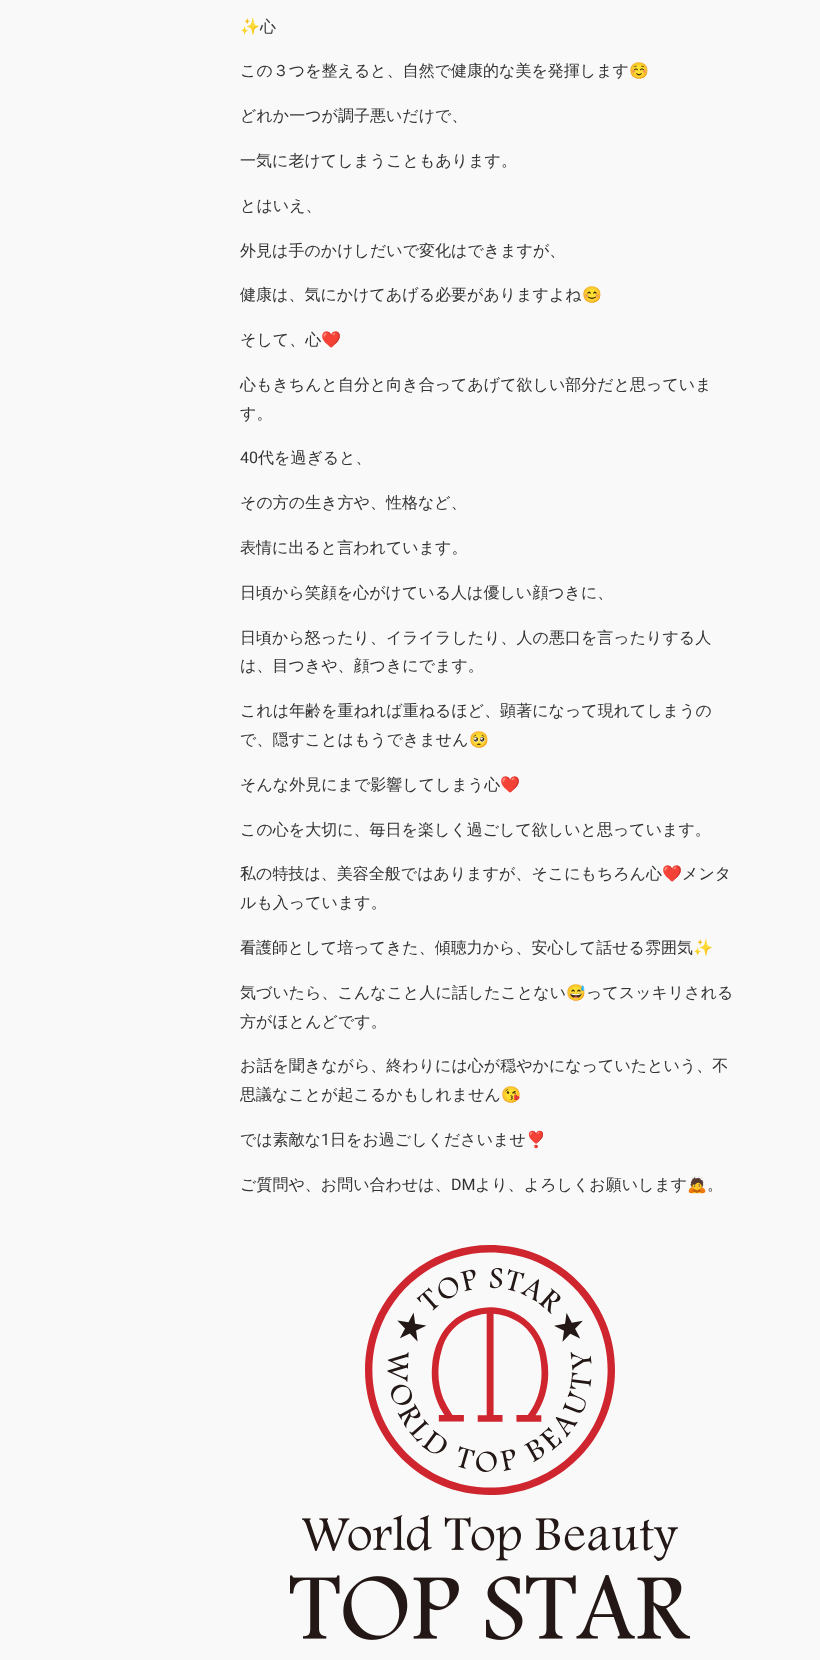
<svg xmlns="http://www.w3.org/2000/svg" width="820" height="1660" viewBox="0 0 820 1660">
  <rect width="100%" height="100%" fill="#f9f9f9"/>
  <image x="365" y="1245" width="250" height="250" href="img/1.png"/>
  <image x="302" y="1515" width="377" height="46" href="img/2.png"/>
  <image x="290" y="1575" width="400" height="65" href="img/3.png"/>
  <text x="240" y="32" font-family="Noto Color Emoji" font-size="16" fill="#333">✨</text>
  <g font-family="WenQuanYi Zen Hei" font-size="16" font-weight="500" fill="#333">
    <text x="260" y="32">心</text>
    <text x="240" y="76">この３つを整えると、自然で健康的な美を発揮します</text>
  </g>
  <text x="629" y="76" font-family="Noto Color Emoji" font-size="16" fill="#333">☺️</text>
  <g font-family="WenQuanYi Zen Hei" font-size="16" font-weight="500" fill="#333">
    <text x="240" y="121">どれか一つが調子悪いだけで、</text>
    <text x="240" y="166">一気に老けてしまうこともあります。</text>
    <text x="240" y="211">とはいえ、</text>
    <text x="240" y="256">外見は手のかけしだいで変化はできますが、</text>
    <text x="240" y="300">健康は、気にかけてあげる必要がありますよね</text>
  </g>
  <text x="582" y="300" font-family="Noto Color Emoji" font-size="16" fill="#333">😊</text>
  <text x="240" y="345" font-family="WenQuanYi Zen Hei" font-size="16" font-weight="500" fill="#333">そして、心</text>
  <text x="321" y="345" font-family="Noto Color Emoji" font-size="16" fill="#333">❤️</text>
  <g font-family="WenQuanYi Zen Hei" font-size="16" font-weight="500" fill="#333">
    <text x="240" y="390">心もきちんと自分と向き合ってあげて欲しい部分だと思っていま</text>
    <text x="240" y="419">す。</text>
  </g>
  <text x="240" y="463" font-family="Roboto" font-size="16" fill="#333">40</text>
  <g font-family="WenQuanYi Zen Hei" font-size="16" font-weight="500" fill="#333">
    <text x="258" y="463">代を過ぎると、</text>
    <text x="240" y="508">その方の生き方や、性格など、</text>
    <text x="240" y="553">表情に出ると言われています。</text>
    <text x="240" y="598">日頃から笑顔を心がけている人は優しい顔つきに、</text>
    <text x="240" y="643">日頃から怒ったり、イライラしたり、人の悪口を言ったりする人</text>
    <text x="240" y="671">は、目つきや、顔つきにでます。</text>
    <text x="240" y="716">これは年齢を重ねれば重ねるほど、顕著になって現れてしまうの</text>
    <text x="240" y="745">で、隠すことはもうできません</text>
  </g>
  <text x="469" y="745" font-family="Noto Color Emoji" font-size="16" fill="#333">🥺</text>
  <text x="240" y="790" font-family="WenQuanYi Zen Hei" font-size="16" font-weight="500" fill="#333">そんな外見にまで影響してしまう心</text>
  <text x="500" y="790" font-family="Noto Color Emoji" font-size="16" fill="#333">❤️</text>
  <g font-family="WenQuanYi Zen Hei" font-size="16" font-weight="500" fill="#333">
    <text x="240" y="835">この心を大切に、毎日を楽しく過ごして欲しいと思っています。</text>
    <text x="240" y="879">私の特技は、美容全般ではありますが、そこにもちろん心</text>
  </g>
  <text x="662" y="879" font-family="Noto Color Emoji" font-size="16" fill="#333">❤️</text>
  <g font-family="WenQuanYi Zen Hei" font-size="16" font-weight="500" fill="#333">
    <text x="682" y="879">メンタ</text>
    <text x="240" y="908">ルも入っています。</text>
    <text x="240" y="953">看護師として培ってきた、傾聴力から、安心して話せる雰囲気</text>
  </g>
  <text x="693" y="953" font-family="Noto Color Emoji" font-size="16" fill="#333">✨</text>
  <text x="240" y="998" font-family="WenQuanYi Zen Hei" font-size="16" font-weight="500" fill="#333">気づいたら、こんなこと人に話したことない</text>
  <text x="566" y="998" font-family="Noto Color Emoji" font-size="16" fill="#333">😅</text>
  <g font-family="WenQuanYi Zen Hei" font-size="16" font-weight="500" fill="#333">
    <text x="586" y="998">ってスッキリされる</text>
    <text x="240" y="1027">方がほとんどです。</text>
    <text x="240" y="1071">お話を聞きながら、終わりには心が穏やかになっていたという、不</text>
    <text x="240" y="1100">思議なことが起こるかもしれません</text>
  </g>
  <text x="501" y="1100" font-family="Noto Color Emoji" font-size="16" fill="#333">😘</text>
  <text x="240" y="1145" font-family="WenQuanYi Zen Hei" font-size="16" font-weight="500" fill="#333">では素敵な</text>
  <text x="321" y="1145" font-family="Roboto" font-size="16" fill="#333">1</text>
  <text x="330" y="1145" font-family="WenQuanYi Zen Hei" font-size="16" font-weight="500" fill="#333">日をお過ごしくださいませ</text>
  <text x="526" y="1145" font-family="Noto Color Emoji" font-size="16" fill="#333">❣️</text>
  <text x="240" y="1190" font-family="WenQuanYi Zen Hei" font-size="16" font-weight="500" fill="#333">ご質問や、お問い合わせは、</text>
  <text x="451" y="1190" font-family="Roboto" font-size="16" fill="#333">DM</text>
  <text x="475" y="1190" font-family="WenQuanYi Zen Hei" font-size="16" font-weight="500" fill="#333">より、よろしくお願いします</text>
  <text x="687" y="1190" font-family="Noto Color Emoji" font-size="16" fill="#333">🙇</text>
  <text x="707" y="1190" font-family="WenQuanYi Zen Hei" font-size="16" font-weight="500" fill="#333">。</text>
</svg>
